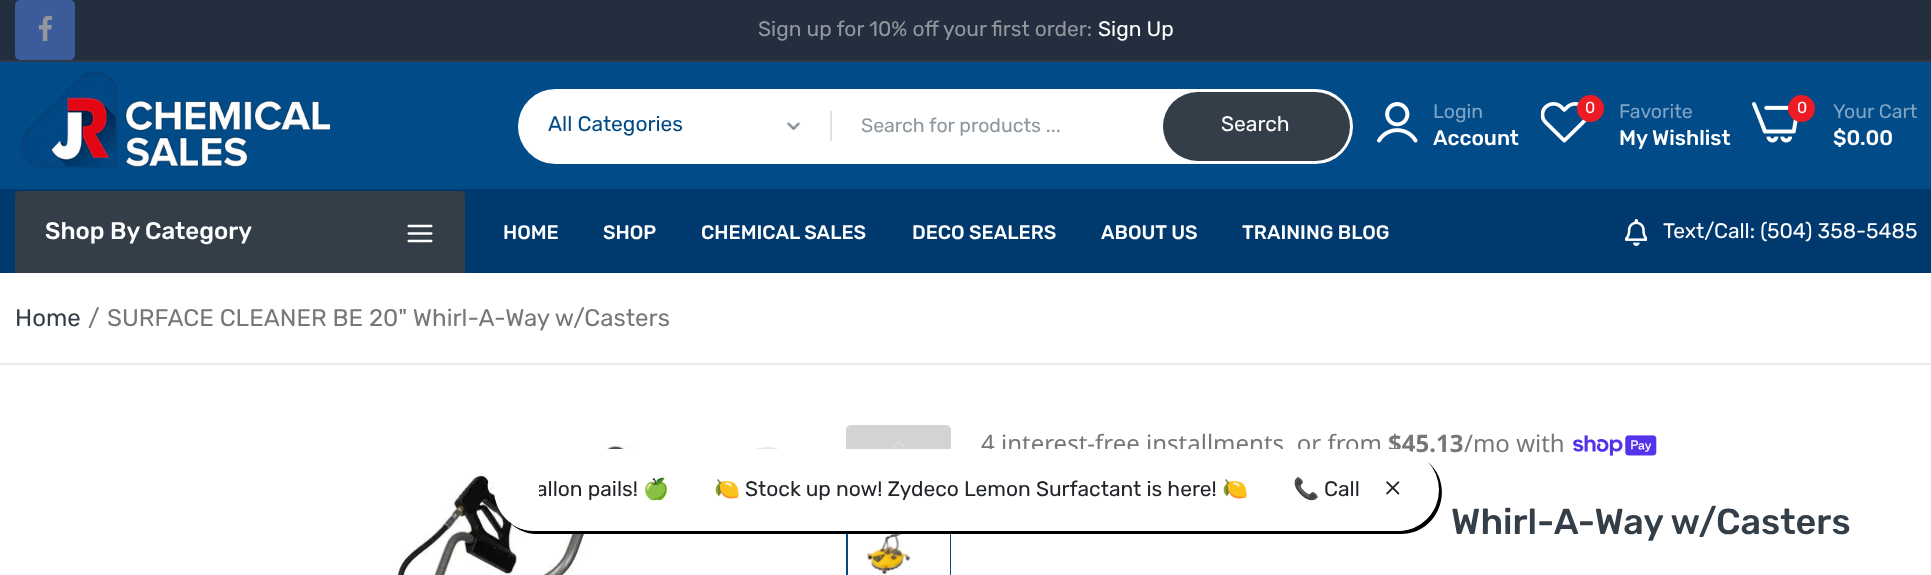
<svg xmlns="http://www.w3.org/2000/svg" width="1931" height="575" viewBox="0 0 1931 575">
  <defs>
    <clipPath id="clip1"><path d="M539 450h825v80H539z"/></clipPath>
  </defs>
  <rect width="100%" height="100%" fill="#fff"/>
  <path d="M0 0h1931v60H0z" fill="#232f3f"/>
  <path d="M0 60h1931v2H0z" fill="#2e3a48"/>
  <rect x="15" width="60" height="60" rx="5" fill="#3c5b9b"/>
  <image x="38" y="15" width="14" height="26" href="img/1.png"/>
  <path d="M0 62h1931v127H0z" fill="#004b88"/>
  <image x="20" y="71" width="310" height="97" href="img/2.png"/>
  <rect x="518" y="89" width="835" height="75" rx="37.5" fill="#fff"/>
  <image x="787" y="121" width="14" height="10" href="img/3.png"/>
  <path d="M830 111h2v30H830z" fill="#e1e1e1"/>
  <rect x="1163" y="92" width="187" height="69" rx="34.5" fill="#333e48"/>
  <image x="1377" y="102" width="41" height="41" href="img/4.png"/>
  <image x="1541" y="102" width="46" height="41" href="img/5.png"/>
  <circle cx="1590.5" cy="108.5" r="13.5" fill="#ed1c24"/>
  <image x="1752" y="102" width="46" height="41" href="img/6.png"/>
  <circle cx="1801.5" cy="108.5" r="13.5" fill="#ed1c24"/>
  <path d="M0 189h1931v84H0z" fill="#00396e"/>
  <path d="M20 191H460C463 191 465 193 465 196V273H15V196C15 193 17 191 20 191Z" fill="#333e48"/>
  <image x="407" y="224" width="26" height="19" href="img/7.png"/>
  <image x="1625" y="219" width="22" height="27" href="img/8.png"/>
  <path d="M0 363h1931v2H0z" fill="#ebebeb"/>
  <image x="395" y="445" width="263" height="130" href="img/10.png"/>
  <rect x="735" y="448" width="65" height="66" rx="32.5" fill="none" stroke="#e5e8ec" stroke-width="2"/>
  <path d="M847 478h103v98H847z" fill="none" stroke="#014985" stroke-width="2"/>
  <path d="M509 522C516 529 524 533 534 534H1401C1439 534 1456 486 1428 462C1434 469 1438 479 1438 490C1438 513 1420 531 1397 531H535C525 531 516 528 509 522Z" fill="#000"/>
  <rect x="847" y="426" width="103" height="35" rx="4" fill="#d3d3d3" stroke="#d3d3d3" stroke-width="2"/>
  <image x="892" y="441" width="13" height="7" href="img/11.png"/>
  <image x="848" y="534" width="102" height="41" href="img/12.png"/>
  <image x="1573" y="435" width="84" height="21" href="img/13.png"/>
  <text x="758" y="36" font-family="Rubik" font-size="21" fill="#93969d">Sign up for 10% off your first order:</text>
  <text x="1098" y="36" font-family="Rubik" font-size="21" fill="#fff">Sign Up</text>
  <text x="548" y="131" font-family="Rubik" font-size="21" fill="#014985">All Categories</text>
  <text x="861" y="132" font-family="Rubik" font-size="19.5" fill="#8d979e">Search for products ...</text>
  <text x="1221" y="131" font-family="Rubik" font-size="21" fill="#fff">Search</text>
  <text x="1433" y="118" font-family="Rubik" font-size="19.5" fill="#80a5c4">Login</text>
  <text x="1433" y="145" font-family="Rubik" font-size="21" font-weight="500" fill="#fff">Account</text>
  <text x="1585" y="113" font-family="Rubik" font-size="16" fill="#fff">0</text>
  <text x="1619" y="118" font-family="Rubik" font-size="19.5" fill="#80a5c4">Favorite</text>
  <text x="1619" y="145" font-family="Rubik" font-size="21" font-weight="500" fill="#fff">My Wishlist</text>
  <text x="1797" y="113" font-family="Rubik" font-size="16" fill="#fff">0</text>
  <text x="1833" y="118" font-family="Rubik" font-size="19.5" fill="#80a5c4">Your Cart</text>
  <text x="1833" y="145" font-family="Rubik" font-size="21" font-weight="500" fill="#fff">$0.00</text>
  <text x="45" y="239" font-family="Rubik" font-size="24" font-weight="500" fill="#fff">Shop By Category</text>
  <g font-family="Rubik" font-size="19.5" font-weight="500" fill="#fff">
    <text x="503" y="239">HOME</text>
    <text x="603" y="239">SHOP</text>
    <text x="701" y="239">CHEMICAL SALES</text>
    <text x="912" y="239">DECO SEALERS</text>
    <text x="1101" y="239">ABOUT US</text>
    <text x="1242" y="239">TRAINING BLOG</text>
  </g>
  <text x="1663" y="238" font-family="Rubik" font-size="21" fill="#fff">Text/Call: (504) 358-5485</text>
  <text x="15" y="326" font-family="Rubik" font-size="24" fill="#333e48">Home</text>
  <g font-family="Rubik" font-size="24" fill="#777">
    <text x="88" y="326">/</text>
    <text x="107" y="326">SURFACE CLEANER BE 20" Whirl-A-Way w/Casters</text>
  </g>
  <text x="981" y="452" font-family="Noto Sans" font-size="24" fill="#777">4 interest-free installments, or from</text>
  <text x="1388" y="452" font-family="Noto Sans" font-size="24" font-weight="bold" fill="#777">$45.13</text>
  <rect x="494" y="449" width="945" height="82" rx="41" fill="#fff"/>
  <image x="1386" y="481" width="14" height="14" href="img/9.png"/>
  <text x="1324" y="496" font-family="Rubik" font-size="21" fill="#212529">Call</text>
  <g font-family="Noto Color Emoji" font-size="21" fill="#212529">
    <text x="1293" y="496">📞</text>
    <text x="1222" y="496">🍋</text>
  </g>
  <text x="745" y="496" font-family="Rubik" font-size="21" fill="#212529">Stock up now! Zydeco Lemon Surfactant is here!</text>
  <g font-family="Noto Color Emoji" font-size="21" fill="#212529">
    <text x="714" y="496">🍋</text>
    <text x="643" y="496">🍏</text>
  </g>
  <g clip-path="url(#clip1)">
    <text x="536" y="496" font-family="Rubik" font-size="21" fill="#212529">allon pails!</text>
  </g>
  <text x="1464" y="452" font-family="Noto Sans" font-size="24" fill="#777">/mo with</text>
  <text x="1451" y="534" font-family="Rubik" font-size="36" font-weight="500" fill="#333e48">Whirl-A-Way w/Casters</text>
</svg>
